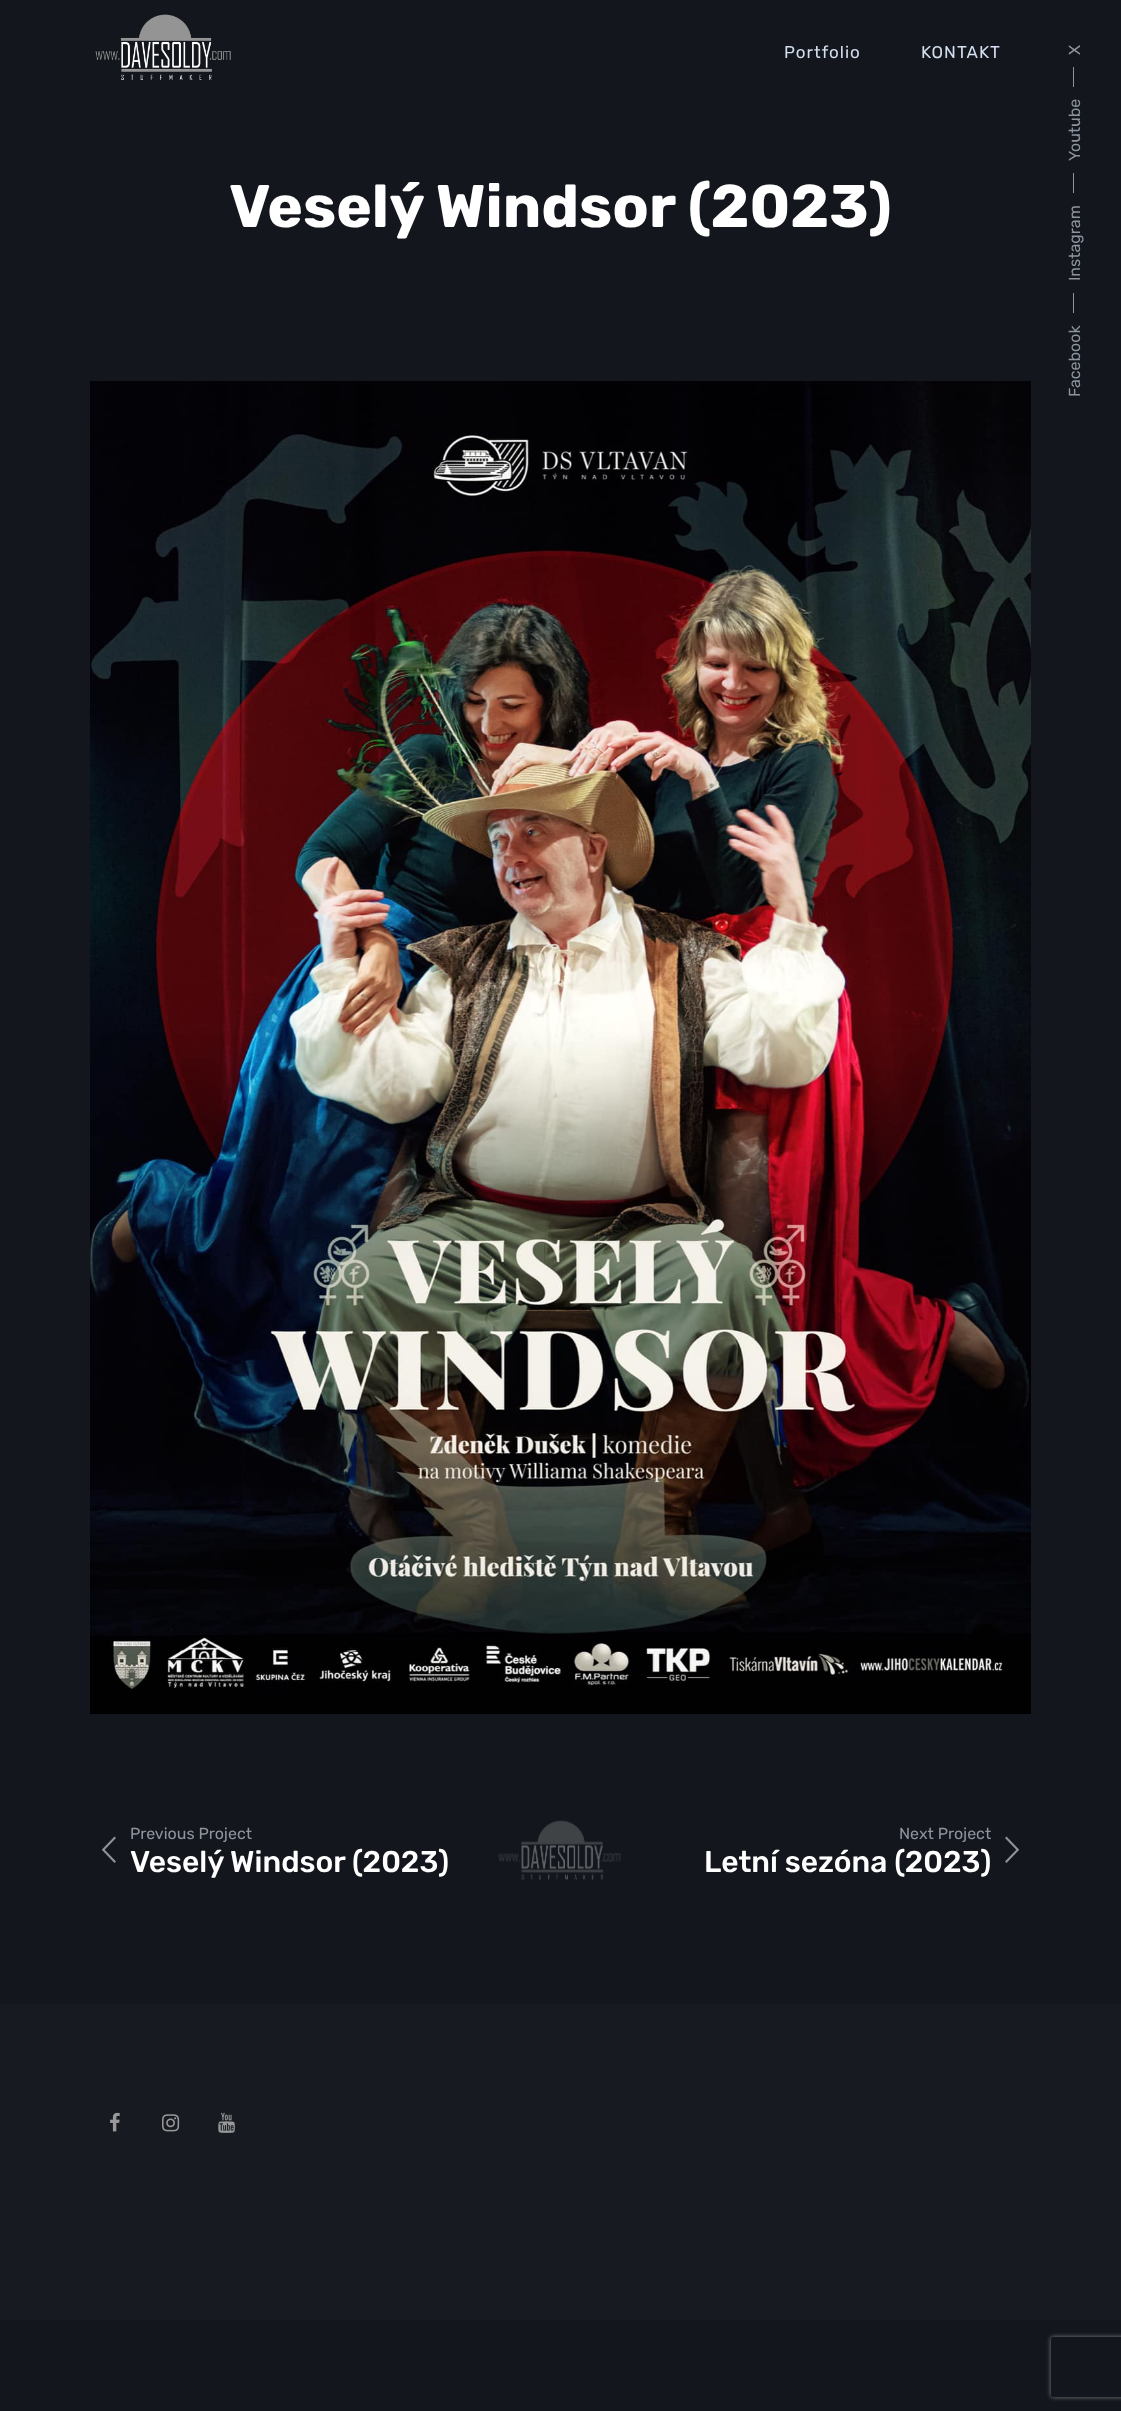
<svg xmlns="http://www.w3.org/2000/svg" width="1121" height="2411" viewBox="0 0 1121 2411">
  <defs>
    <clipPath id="clip1"><path d="M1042 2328H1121V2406H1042ZM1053 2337H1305C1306 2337 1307 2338 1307 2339V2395C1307 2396 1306 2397 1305 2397H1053C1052 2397 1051 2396 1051 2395V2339C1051 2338 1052 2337 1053 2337Z" clip-rule="evenodd"/></clipPath>
  </defs>
  <rect width="100%" height="100%" fill="#13171d"/>
  <image x="95" y="14" width="136" height="66" href="img/1.png"/>
  <path d="M1073 67h1v20H1073z" fill="#8d949e"/>
  <path d="M1073 173h1v20H1073z" fill="#8d949e"/>
  <path d="M1073 293h1v20H1073z" fill="#8d949e"/>
  <image x="90" y="381" width="941" height="1333" href="img/2.png"/>
  <path d="M102 1849.5L114.5 1836.5L116 1838L103.5 1851Z" fill="#8d949e"/>
  <path d="M103.5 1848.5L116 1861.5L114.5 1863L102 1850Z" fill="#8d949e"/>
  <image x="498" y="1820" width="123" height="60" href="img/3.png"/>
  <path d="M1006.5 1836.5L1019 1849.5L1017.5 1851L1005 1838Z" fill="#8d949e"/>
  <path d="M1005 1861.5L1017.5 1848.5L1019 1850L1006.5 1863Z" fill="#8d949e"/>
  <path d="M0 2004h1121v316H0z" fill="#171b21"/>
  <image x="110" y="2112" width="10" height="20" href="img/4.png"/>
  <image x="162" y="2114" width="18" height="18" href="img/5.png"/>
  <image x="218" y="2112" width="17" height="21" href="img/6.png"/>
  <g clip-path="url(#clip1)">
    <rect x="1051" y="2337" width="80" height="60" rx="2" fill="#808080" filter="blur(2.5px)"/>
  </g>
  <text x="229" y="227" font-family="Rubik" font-size="60" font-weight="bold" fill="#fff">Veselý Windsor (2023)</text>
  <g font-family="Rubik" font-size="17" letter-spacing="1" fill="#d4deef">
    <text x="784" y="58">Portfolio</text>
    <text x="921" y="58">KONTAKT</text>
  </g>
  <g font-family="Rubik" font-size="16" fill="#8d949e">
    <text x="1080" y="55" transform="rotate(-90 1080 55)">X</text>
    <text x="1080" y="161" transform="rotate(-90 1080 161)">Youtube</text>
    <text x="1080" y="281" transform="rotate(-90 1080 281)">Instagram</text>
    <text x="1080" y="397" transform="rotate(-90 1080 397)">Facebook</text>
    <text x="130" y="1839">Previous Project</text>
  </g>
  <text x="130" y="1872" font-family="Rubik" font-size="30" font-weight="500" fill="#fff">Veselý Windsor (2023)</text>
  <text x="899" y="1839" font-family="Rubik" font-size="16" fill="#8d949e">Next Project</text>
  <text x="704" y="1872" font-family="Rubik" font-size="30" font-weight="500" fill="#fff">Letní sezóna (2023)</text>
</svg>
